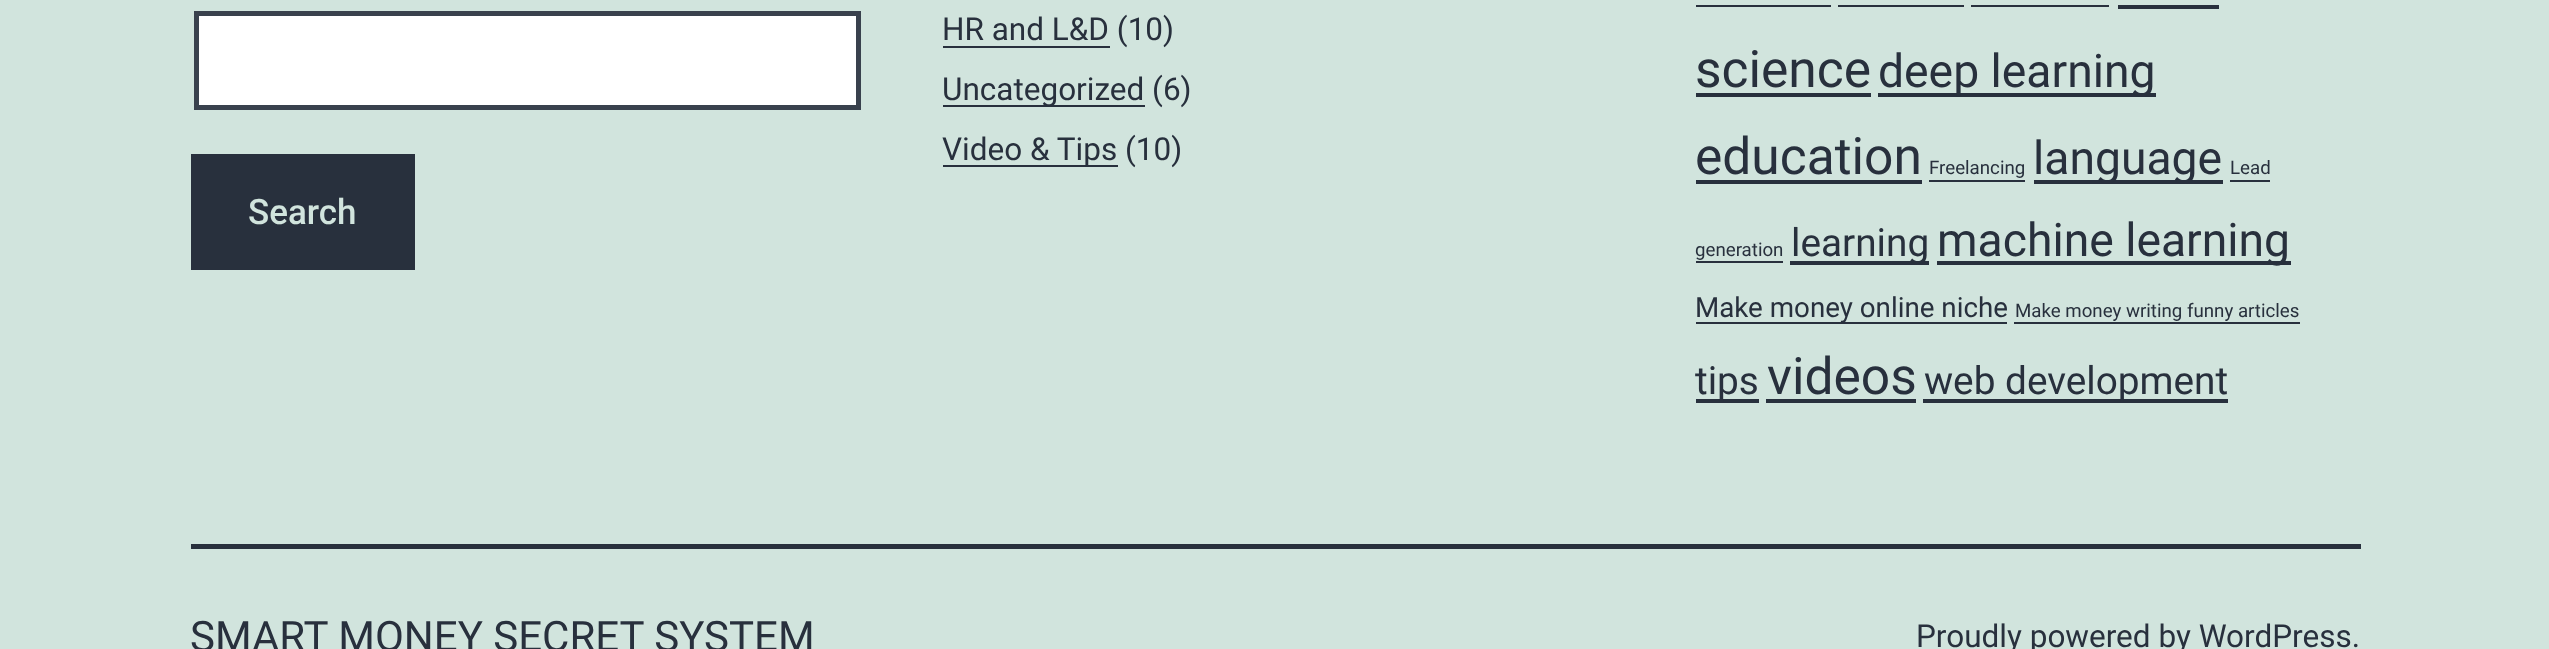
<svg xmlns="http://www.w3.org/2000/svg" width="2549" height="649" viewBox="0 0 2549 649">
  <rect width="100%" height="100%" fill="#d1e4dd"/>
  <path d="M196.5 13.5h662v94H196.5z" fill="#fff" stroke="#39414d" stroke-width="5"/>
  <path d="M191 154h224v116H191z" fill="#28303d"/>
  <path d="M943 46h167v2H943z" fill="#28303d"/>
  <path d="M943 105h202v2H943z" fill="#28303d"/>
  <path d="M943 165h175v2H943z" fill="#28303d"/>
  <path d="M1696 5h135v2H1696z" fill="#28303d"/>
  <path d="M1838 5h126v2H1838z" fill="#28303d"/>
  <path d="M1971 5h138v2H1971z" fill="#28303d"/>
  <path d="M2118 5h101v4H2118z" fill="#28303d"/>
  <path d="M1696 93h175v4H1696z" fill="#28303d"/>
  <path d="M1878 93h278v4H1878z" fill="#28303d"/>
  <path d="M1696 180h226v4H1696z" fill="#28303d"/>
  <path d="M1929 180h96v2H1929z" fill="#28303d"/>
  <path d="M2034 180h189v4H2034z" fill="#28303d"/>
  <path d="M2230 180h40v2H2230z" fill="#28303d"/>
  <path d="M1696 261h87v2H1696z" fill="#28303d"/>
  <path d="M1790 261h139v4H1790z" fill="#28303d"/>
  <path d="M1937 261h354v4H1937z" fill="#28303d"/>
  <path d="M1696 322h311v2H1696z" fill="#28303d"/>
  <path d="M2014 322h286v2H2014z" fill="#28303d"/>
  <path d="M1696 399h63v4H1696z" fill="#28303d"/>
  <path d="M1766 399h150v4H1766z" fill="#28303d"/>
  <path d="M1923 399h305v4H1923z" fill="#28303d"/>
  <path d="M191 544h2170v5H191z" fill="#28303d"/>
  <text x="248" y="224" font-family="Roboto" font-size="35" font-weight="500" fill="#d1e4dd">Search</text>
  <g font-family="Roboto" font-size="31.5" fill="#28303d">
    <text x="942" y="40">HR and L&amp;D (10)</text>
    <text x="942" y="100">Uncategorized (6)</text>
    <text x="942" y="160">Video &amp; Tips (10)</text>
  </g>
  <text x="1695" y="87" font-family="Roboto" font-size="51.5" fill="#28303d">science</text>
  <text x="1878" y="87" font-family="Roboto" font-size="46.25" fill="#28303d">deep learning</text>
  <text x="1695" y="174" font-family="Roboto" font-size="51.5" fill="#28303d">education</text>
  <text x="1929" y="174" font-family="Roboto" font-size="18.7" fill="#28303d">Freelancing</text>
  <text x="2033" y="174" font-family="Roboto" font-size="46.25" fill="#28303d">language</text>
  <g font-family="Roboto" font-size="18.7" fill="#28303d">
    <text x="2230" y="174">Lead</text>
    <text x="1695" y="256">generation</text>
  </g>
  <text x="1791" y="256" font-family="Roboto" font-size="38.75" fill="#28303d">learning</text>
  <text x="1937" y="256" font-family="Roboto" font-size="46.25" fill="#28303d">machine learning</text>
  <text x="1695" y="317" font-family="Roboto" font-size="27.75" fill="#28303d">Make money online niche</text>
  <text x="2015" y="317" font-family="Roboto" font-size="18.7" fill="#28303d">Make money writing funny articles</text>
  <text x="1695" y="394" font-family="Roboto" font-size="38.75" fill="#28303d">tips</text>
  <text x="1767" y="394" font-family="Roboto" font-size="51.5" fill="#28303d">videos</text>
  <text x="1924" y="394" font-family="Roboto" font-size="38.75" fill="#28303d">web development</text>
  <text x="190" y="651" font-family="Roboto" font-size="42" fill="#28303d">SMART MONEY SECRET SYSTEM</text>
  <text x="1916" y="647" font-family="Roboto" font-size="31.5" fill="#28303d">Proudly powered by WordPress.</text>
</svg>
